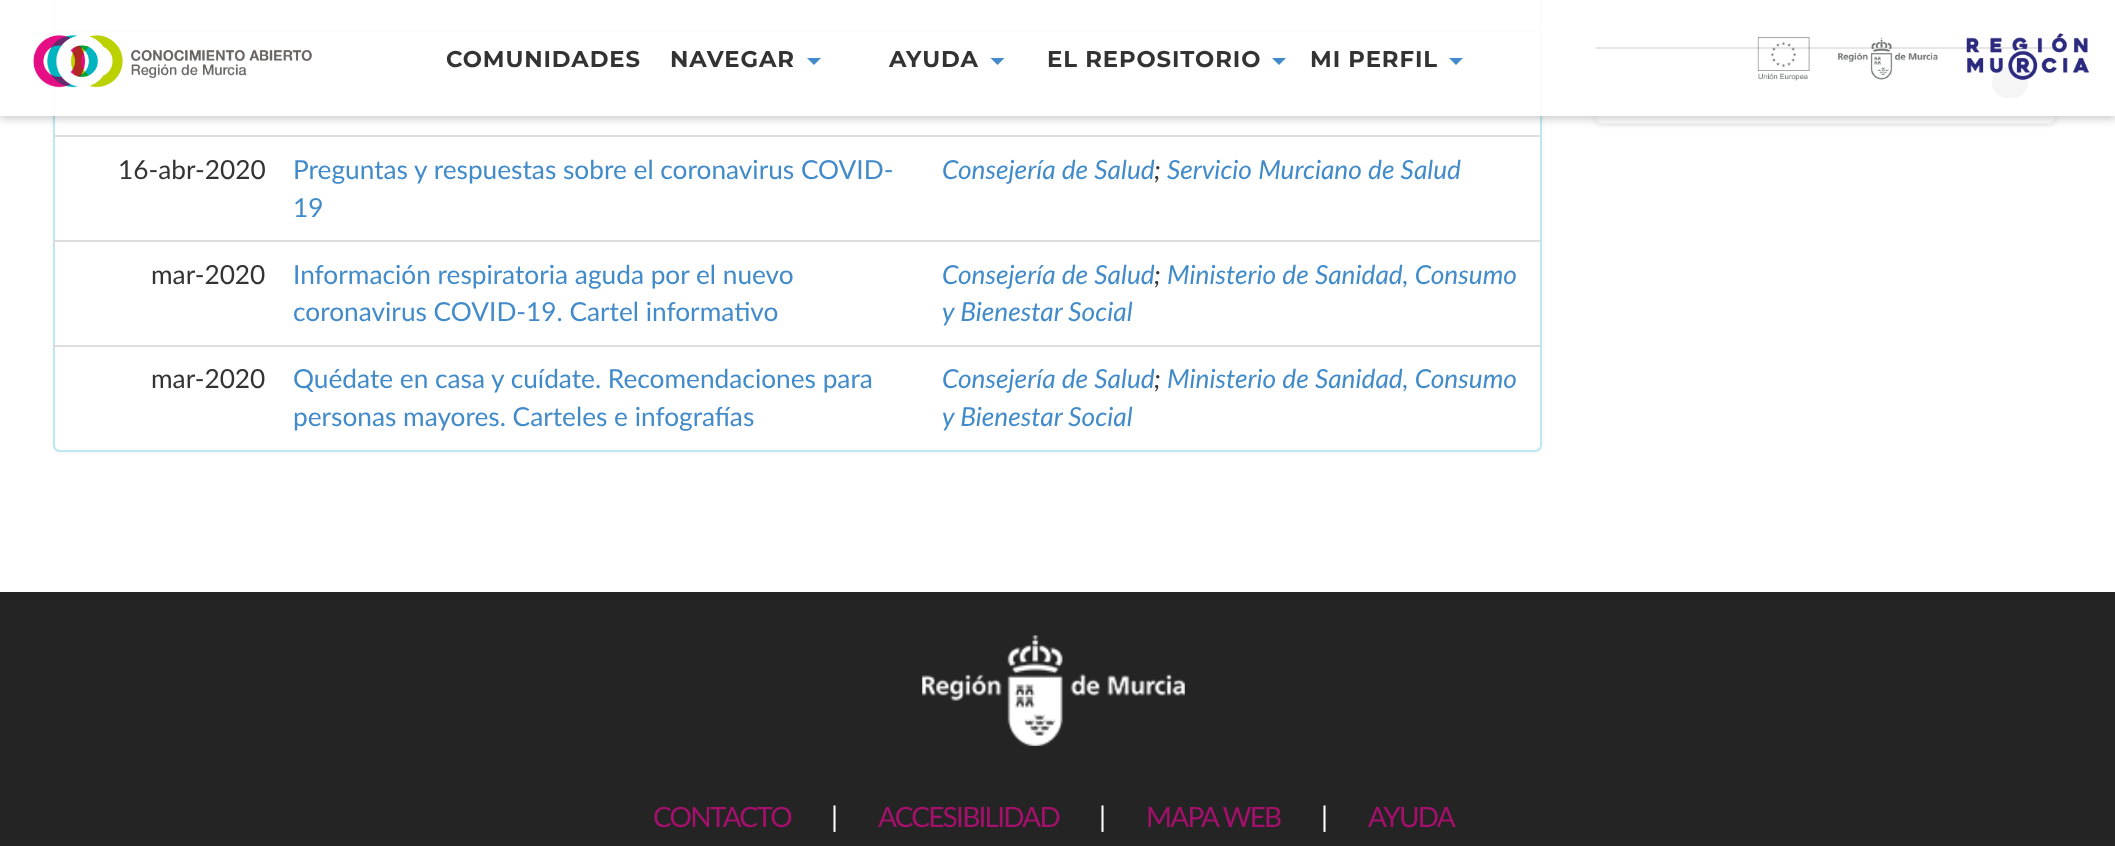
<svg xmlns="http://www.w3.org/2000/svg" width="2115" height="846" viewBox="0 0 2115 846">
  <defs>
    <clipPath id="clip1"><path d="M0 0H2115V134H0ZM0 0H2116V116H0Z" clip-rule="evenodd"/></clipPath>
  </defs>
  <rect width="100%" height="100%" fill="#fff"/>
  <rect x="1594" y="-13" width="462" height="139" rx="7" fill="#0000000d" filter="blur(2px)"/>
  <rect x="1594" y="-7" width="462" height="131" rx="7" fill="#fff"/>
  <path d="M1596 47h459v2H1596z" fill="#000"/>
  <rect x="1596" y="51" width="459" height="73" rx="7" fill="#00000012" filter="blur(2px)"/>
  <path d="M1596 49H2055V116C2055 120 2052 123 2048 123H1603C1599 123 1596 120 1596 116Z" fill="#fff"/>
  <rect x="1992" y="67" width="36" height="31" rx="15.5" fill="#999"/>
  <rect x="53" y="-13" width="1489" height="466" rx="7" fill="#0000000d" filter="blur(2px)"/>
  <rect x="54" y="-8" width="1487" height="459" rx="6" fill="#fff" stroke="#bce8f1" stroke-width="2"/>
  <path d="M53 30h1487v2H53z" fill="#ddd"/>
  <g clip-path="url(#clip1)">
    <path d="M0 4h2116v115H0z" fill="#00000033" filter="blur(4.5px)"/>
  </g>
  <path d="M0 0h2115v116H0z" fill="#ffffffe6"/>
  <image x="33" y="35" width="279" height="53" href="img/1.png"/>
  <path d="M807 58H821L814 65Z" fill="#428bca"/>
  <path d="M990.5 58H1004.5L997.5 65Z" fill="#428bca"/>
  <path d="M1272 58H1286L1279 65Z" fill="#428bca"/>
  <path d="M1449 58H1463L1456 65Z" fill="#428bca"/>
  <image x="1757" y="33" width="332" height="48" href="img/2.png"/>
  <path d="M53 135h1487v2H53z" fill="#ddd"/>
  <path d="M53 240h1487v2H53z" fill="#ddd"/>
  <path d="M53 345h1487v2H53z" fill="#ddd"/>
  <path d="M0 592h2115v254H0z" fill="#242424"/>
  <image x="922" y="635" width="263" height="111" href="img/3.png"/>
  <g font-family="Montserrat" font-size="22.75" font-weight="100" letter-spacing="0.9" fill="#333">
    <text x="446" y="67">COMUNIDADES</text>
    <text x="670" y="67">NAVEGAR</text>
    <text x="889" y="67">AYUDA</text>
    <text x="1047" y="67">EL REPOSITORIO</text>
    <text x="1310" y="67">MI PERFIL</text>
  </g>
  <text x="118" y="179" font-family="Lato" font-size="26.25" fill="#333">16-abr-2020</text>
  <g font-family="Lato" font-size="26.25" fill="#428bca">
    <text x="293" y="179">Preguntas y respuestas sobre el coronavirus COVID-</text>
    <text x="293" y="217">19</text>
  </g>
  <text x="942" y="179" font-family="Lato" font-size="26.25" font-style="italic" fill="#428bca">Consejería de Salud</text>
  <text x="1154" y="179" font-family="Lato" font-size="26.25" font-style="italic" fill="#333">;</text>
  <text x="1167" y="179" font-family="Lato" font-size="26.25" font-style="italic" fill="#428bca">Servicio Murciano de Salud</text>
  <text x="151" y="284" font-family="Lato" font-size="26.25" fill="#333">mar-2020</text>
  <g font-family="Lato" font-size="26.25" fill="#428bca">
    <text x="293" y="284">Información respiratoria aguda por el nuevo</text>
    <text x="293" y="321">coronavirus COVID-19. Cartel informativo</text>
  </g>
  <text x="942" y="284" font-family="Lato" font-size="26.25" font-style="italic" fill="#428bca">Consejería de Salud</text>
  <text x="1154" y="284" font-family="Lato" font-size="26.25" font-style="italic" fill="#333">;</text>
  <g font-family="Lato" font-size="26.25" font-style="italic" fill="#428bca">
    <text x="1167" y="284">Ministerio de Sanidad, Consumo</text>
    <text x="942" y="321">y Bienestar Social</text>
  </g>
  <text x="151" y="388" font-family="Lato" font-size="26.25" fill="#333">mar-2020</text>
  <g font-family="Lato" font-size="26.25" fill="#428bca">
    <text x="293" y="388">Quédate en casa y cuídate. Recomendaciones para</text>
    <text x="293" y="426">personas mayores. Carteles e infografías</text>
  </g>
  <text x="942" y="388" font-family="Lato" font-size="26.25" font-style="italic" fill="#428bca">Consejería de Salud</text>
  <text x="1154" y="388" font-family="Lato" font-size="26.25" font-style="italic" fill="#333">;</text>
  <g font-family="Lato" font-size="26.25" font-style="italic" fill="#428bca">
    <text x="1167" y="388">Ministerio de Sanidad, Consumo</text>
    <text x="942" y="426">y Bienestar Social</text>
  </g>
  <text x="653" y="827" font-family="Lato" font-size="28" letter-spacing="-1.75" fill="#a5106d">CONTACTO</text>
  <text x="831" y="827" font-family="Lato" font-size="28" letter-spacing="-1.75" fill="#fff">|</text>
  <text x="878" y="827" font-family="Lato" font-size="28" letter-spacing="-1.75" fill="#a5106d">ACCESIBILIDAD</text>
  <text x="1099" y="827" font-family="Lato" font-size="28" letter-spacing="-1.75" fill="#fff">|</text>
  <text x="1146" y="827" font-family="Lato" font-size="28" letter-spacing="-1.75" fill="#a5106d">MAPA WEB</text>
  <text x="1321" y="827" font-family="Lato" font-size="28" letter-spacing="-1.75" fill="#fff">|</text>
  <text x="1368" y="827" font-family="Lato" font-size="28" letter-spacing="-1.75" fill="#a5106d">AYUDA</text>
</svg>
